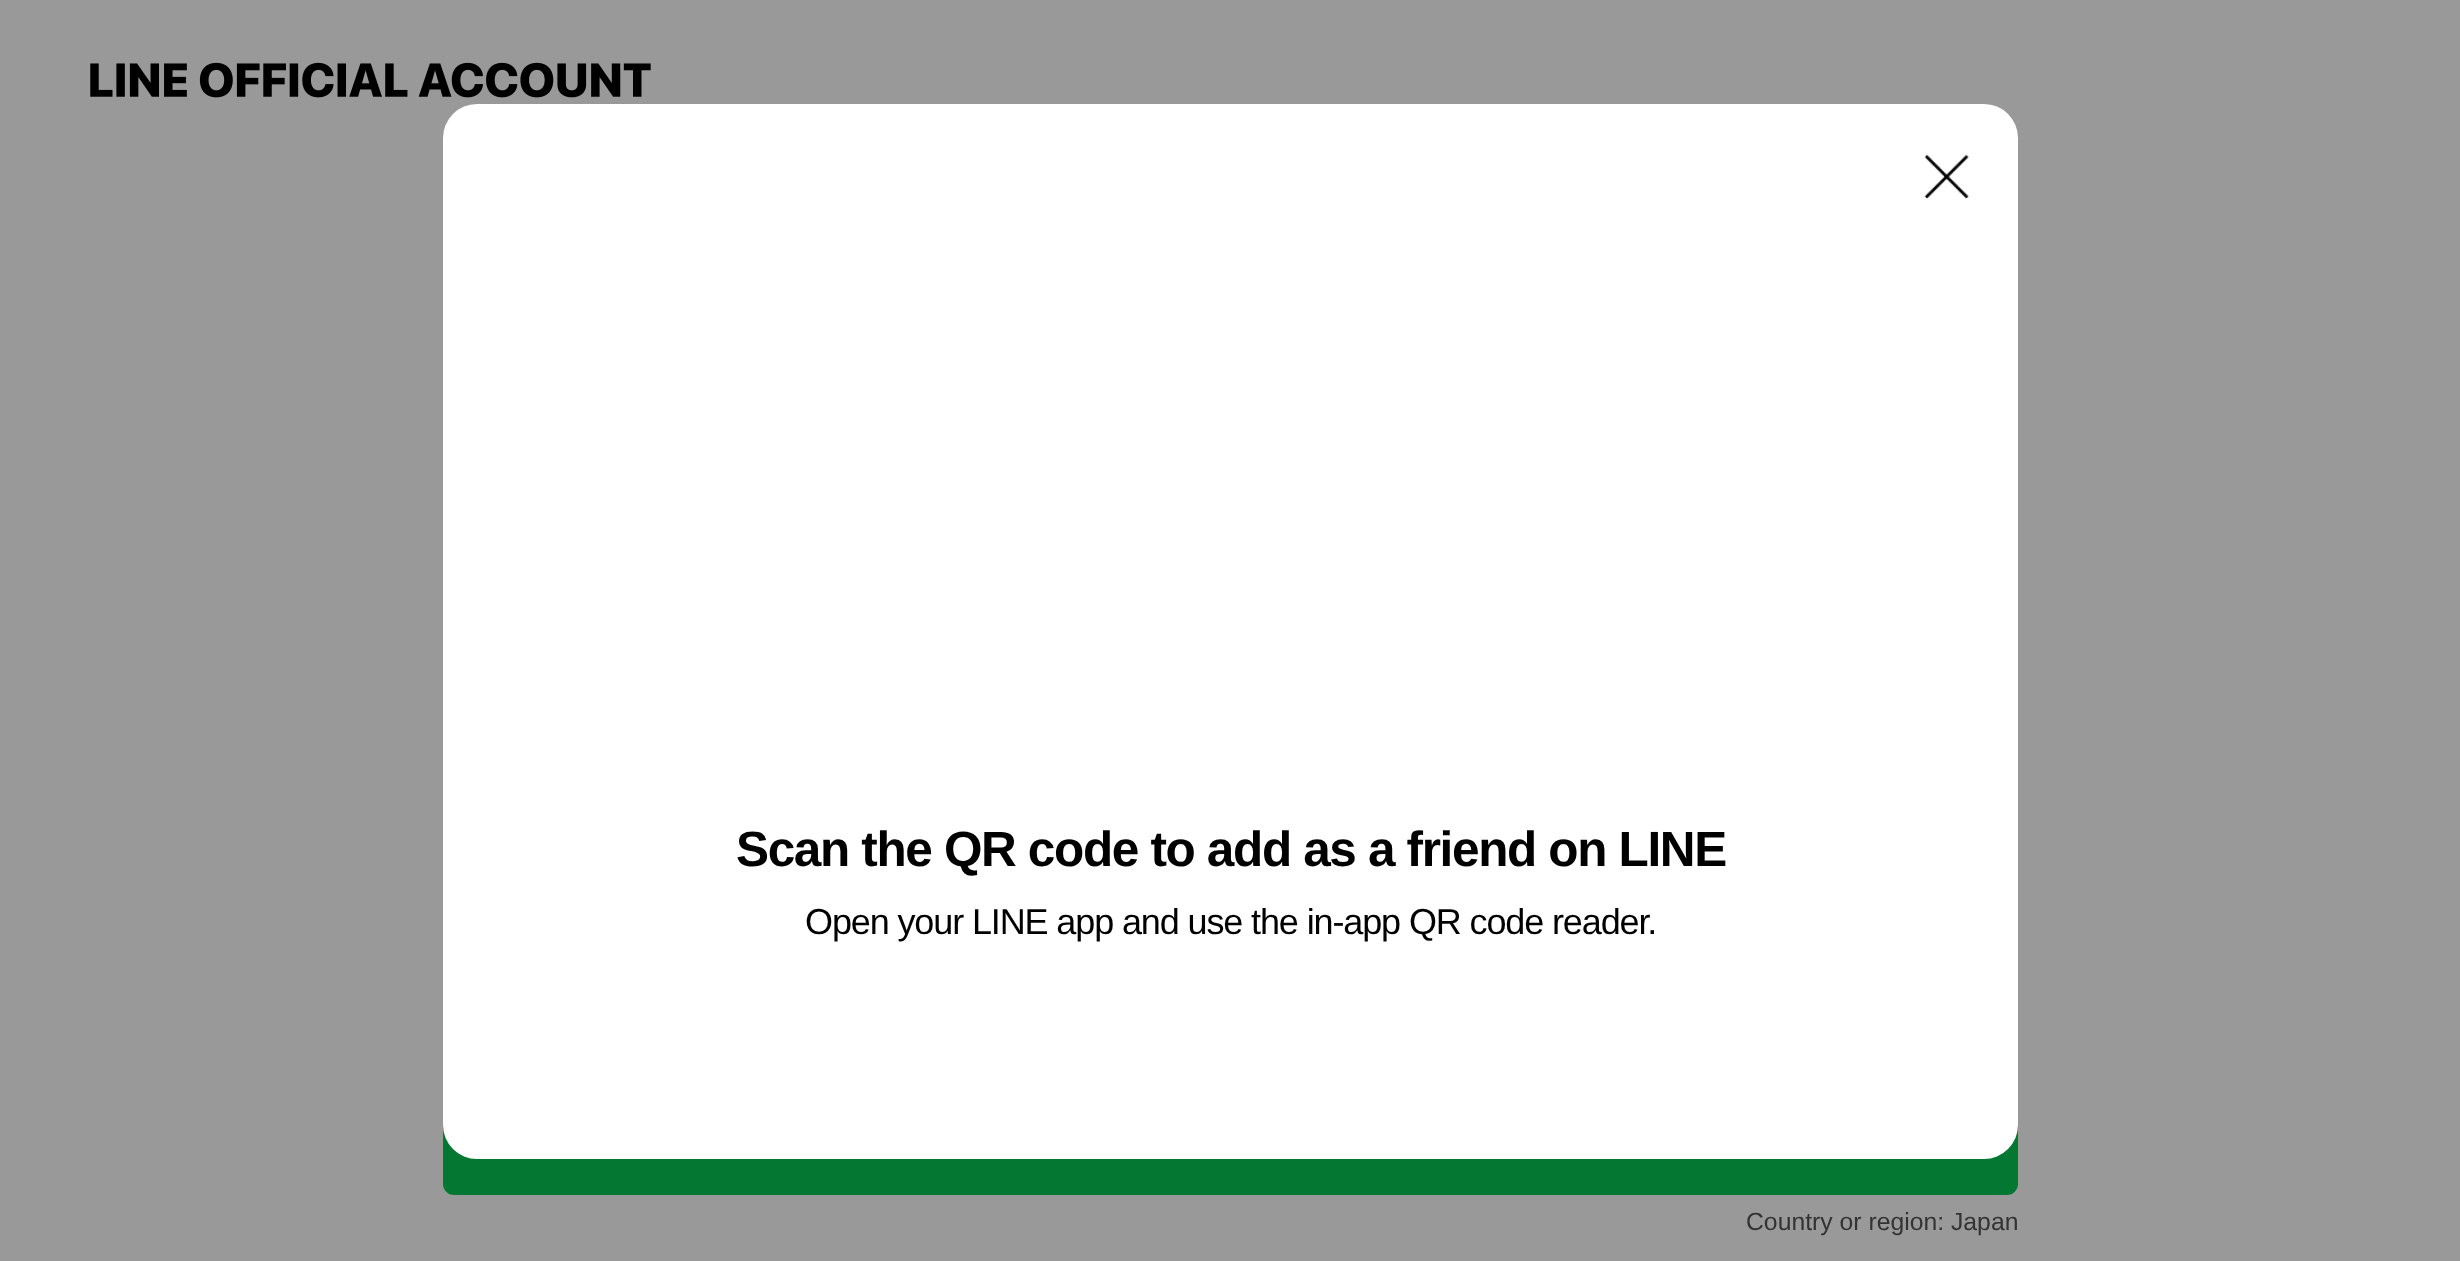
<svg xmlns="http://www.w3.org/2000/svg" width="2460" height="1261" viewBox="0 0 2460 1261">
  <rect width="100%" height="100%" fill="#999"/>
  <rect x="443" y="1087" width="1575" height="108" rx="11" fill="#047733"/>
  <rect x="443" y="104" width="1575" height="1055" rx="34" fill="#fff"/>
  <image x="1924" y="154" width="45" height="45" href="img/1.png"/>
  <image x="90" y="62" width="561" height="36" href="img/2.png"/>
  <text x="736" y="866" font-family="Liberation Sans" font-size="49.5" font-weight="bold" letter-spacing="-1.35" fill="#000">Scan the QR code to add as a friend on LINE</text>
  <text x="805" y="934" font-family="Liberation Sans" font-size="36" letter-spacing="-1.12" fill="#000">Open your LINE app and use the in-app QR code reader.</text>
  <text x="1746" y="1230" font-family="Liberation Sans" font-size="24.75" fill="#333">Country or region: Japan</text>
</svg>
